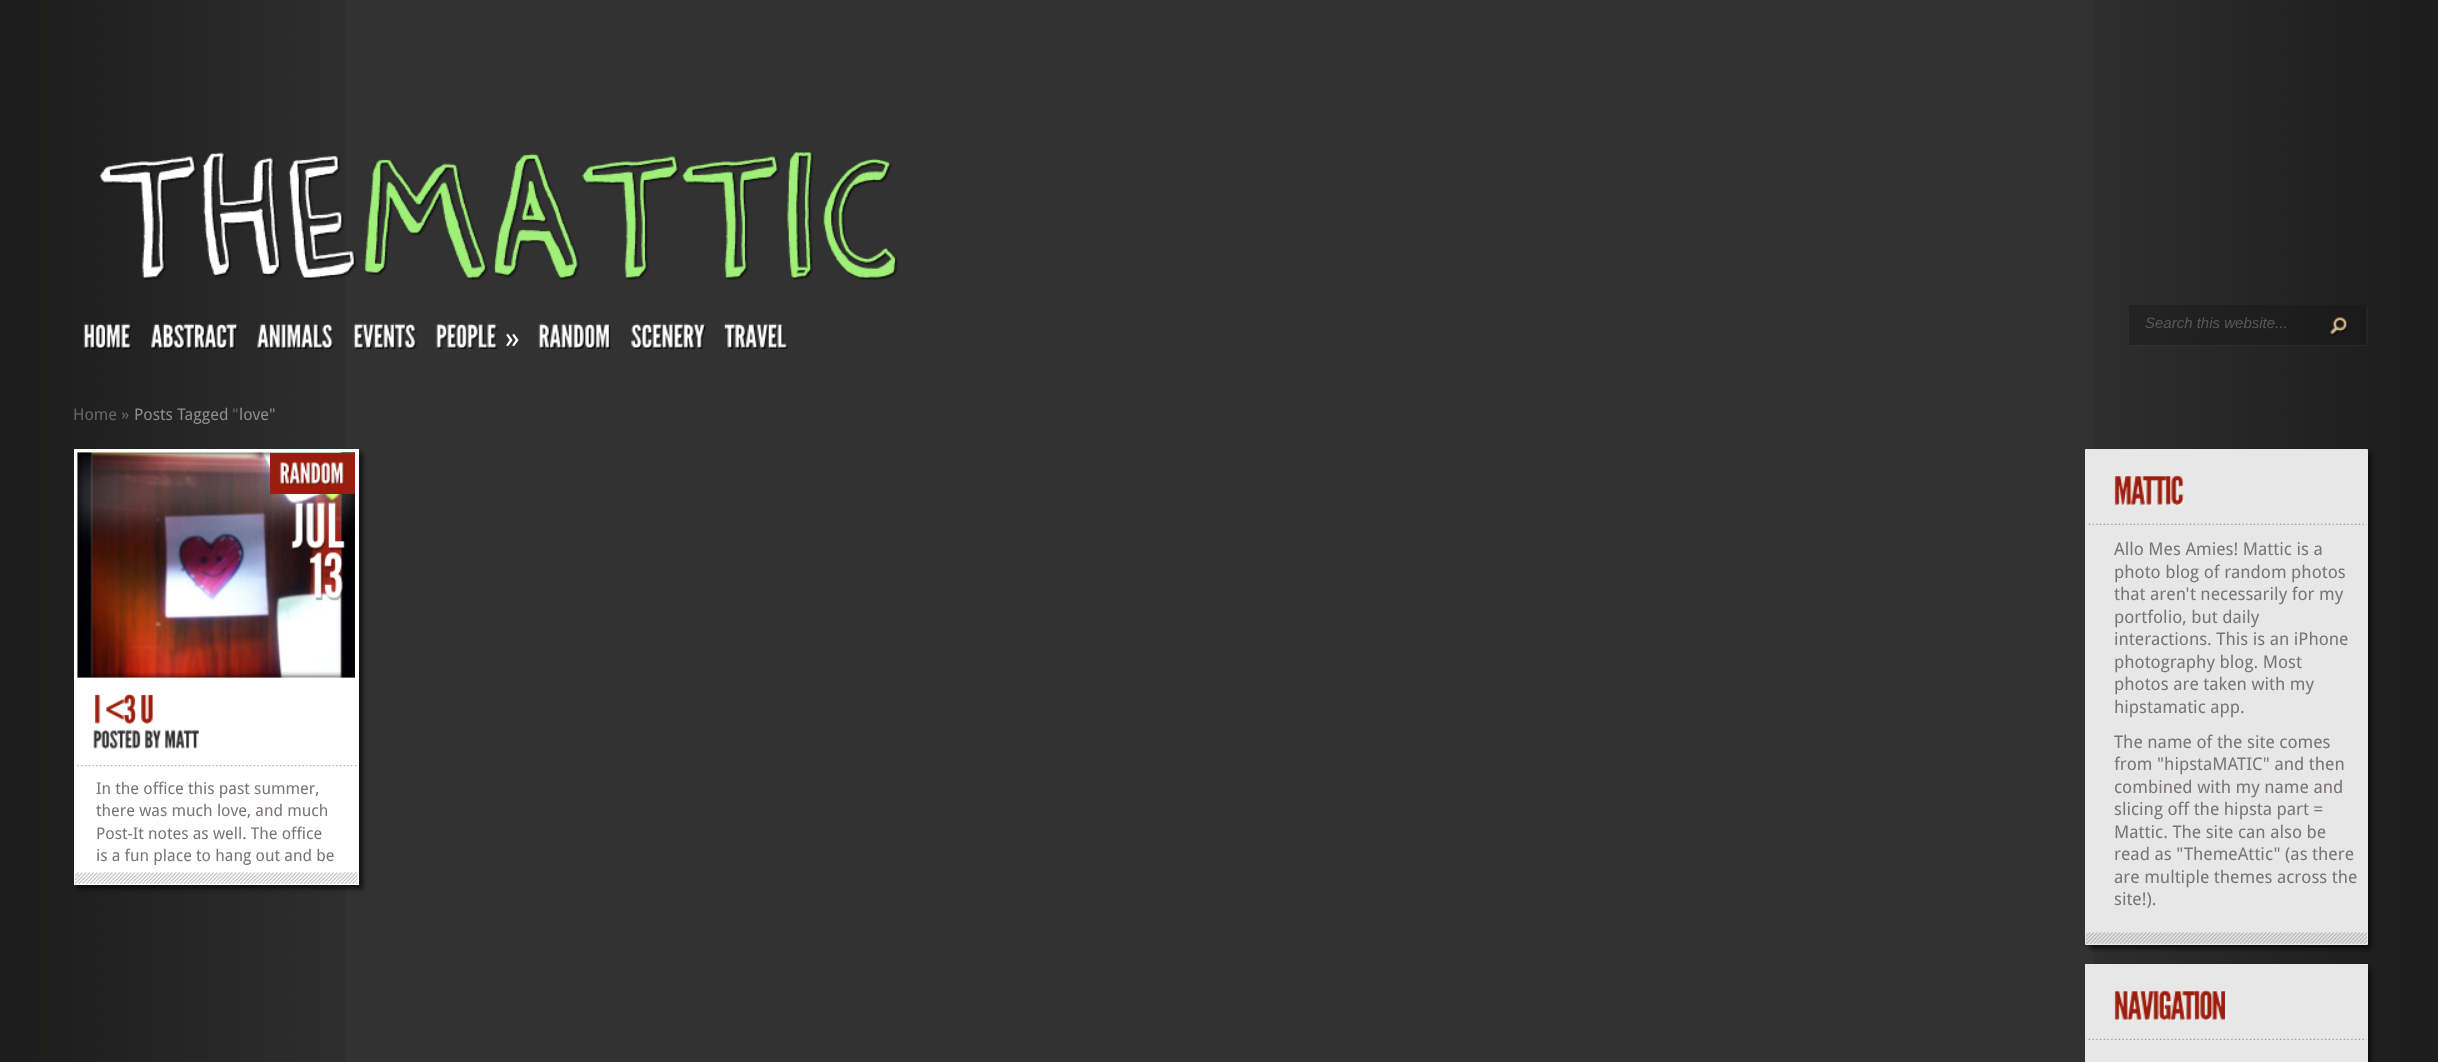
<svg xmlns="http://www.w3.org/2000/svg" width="2438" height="1062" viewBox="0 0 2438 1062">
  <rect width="100%" height="100%" fill="#323232"/>
  <image x="0" y="0" width="345" height="1062" href="img/1.png"/>
  <image x="2094" y="0" width="344" height="1062" href="img/2.png"/>
  <image x="99" y="152" width="799" height="128" href="img/3.png"/>
  <image x="2129" y="305" width="239" height="41" href="img/4.png"/>
  <image x="2330" y="317" width="18" height="18" href="img/5.png"/>
  <image x="83" y="323" width="49" height="26" href="img/6.png"/>
  <image x="151" y="323" width="87" height="26" href="img/7.png"/>
  <image x="257" y="323" width="77" height="26" href="img/8.png"/>
  <image x="353" y="323" width="64" height="26" href="img/9.png"/>
  <image x="436" y="323" width="62" height="26" href="img/10.png"/>
  <image x="538" y="323" width="73" height="26" href="img/11.png"/>
  <image x="631" y="323" width="75" height="26" href="img/12.png"/>
  <image x="723" y="323" width="65" height="26" href="img/13.png"/>
  <path d="M78 453h285v436H78z" fill="#00000099" filter="blur(2px)"/>
  <path d="M74 449h285v436H74z" fill="#fff"/>
  <image x="77" y="452" width="278" height="226" href="img/14.png"/>
  <image x="77" y="452" width="278" height="226" href="img/15.png"/>
  <path d="M270 453h85v41H270z" fill="#9a1d0d"/>
  <image x="279" y="462" width="66" height="23" href="img/16.png"/>
  <image x="291" y="502" width="55" height="49" href="img/17.png"/>
  <image x="309" y="552" width="34" height="49" href="img/18.png"/>
  <image x="94" y="694" width="7" height="30" href="img/19.png"/>
  <image x="106" y="693" width="31" height="31" href="img/20.png"/>
  <image x="141" y="694" width="12" height="30" href="img/21.png"/>
  <image x="93" y="729" width="48" height="20" href="img/22.png"/>
  <image x="144" y="729" width="18" height="20" href="img/23.png"/>
  <image x="164" y="729" width="35" height="20" href="img/24.png"/>
  <image x="75" y="872" width="283" height="12" href="img/25.png"/>
  <image x="75" y="765" width="282" height="2" href="img/26.png"/>
  <path d="M2089 453h282v496H2089z" fill="#00000099" filter="blur(2px)"/>
  <path d="M2086 450h281v494H2086z" fill="#e7e7e7"/>
  <image x="2086" y="932" width="281" height="12" href="img/27.png"/>
  <path d="M2085.5 449.5h282v495H2085.5z" fill="none" stroke="#e7e7e7"/>
  <image x="2086" y="523" width="281" height="2" href="img/28.png"/>
  <image x="2114" y="475" width="71" height="32" href="img/29.png"/>
  <path d="M2089 968h282v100H2089z" fill="#00000099" filter="blur(2px)"/>
  <path d="M2085 964h283v98H2085z" fill="#e7e7e7"/>
  <image x="2086" y="1038" width="281" height="2" href="img/28.png"/>
  <image x="2114" y="990" width="113" height="32" href="img/30.png"/>
  <text x="2145" y="328" font-family="Liberation Sans" font-size="15" font-style="italic" fill="#595959">Search this website...</text>
  <text x="505" y="348" font-family="Droid Sans" font-size="30" fill="#fff">»</text>
  <text x="73" y="420" font-family="Droid Sans" font-size="16.25" fill="#686767">Home »</text>
  <text x="134" y="420" font-family="Droid Sans" font-size="16.25" fill="#8e8e8e">Posts Tagged</text>
  <text x="232" y="420" font-family="Droid Sans" font-size="16.25" fill="#686767">"</text>
  <text x="239" y="420" font-family="Droid Sans" font-size="16.25" fill="#8e8e8e">love"</text>
  <g font-family="Droid Sans" font-size="16.25" fill="#7a7575">
    <text x="96" y="794">In the office this past summer,</text>
    <text x="96" y="816">there was much love, and much</text>
    <text x="96" y="839">Post-It notes as well. The office</text>
    <text x="96" y="861">is a fun place to hang out and be</text>
  </g>
  <g font-family="Droid Sans" font-size="17.5" fill="#7a7575">
    <text x="2114" y="555">Allo Mes Amies! Mattic is a</text>
    <text x="2114" y="578">photo blog of random photos</text>
    <text x="2114" y="600">that aren't necessarily for my</text>
    <text x="2114" y="623">portfolio, but daily</text>
    <text x="2114" y="645">interactions. This is an iPhone</text>
    <text x="2114" y="668">photography blog. Most</text>
    <text x="2114" y="690">photos are taken with my</text>
    <text x="2114" y="713">hipstamatic app.</text>
    <text x="2114" y="748">The name of the site comes</text>
    <text x="2114" y="770">from "hipstaMATIC" and then</text>
    <text x="2114" y="793">combined with my name and</text>
    <text x="2114" y="815">slicing off the hipsta part =</text>
    <text x="2114" y="838">Mattic. The site can also be</text>
    <text x="2114" y="860">read as "ThemeAttic" (as there</text>
    <text x="2114" y="883">are multiple themes across the</text>
    <text x="2114" y="905">site!).</text>
  </g>
</svg>
